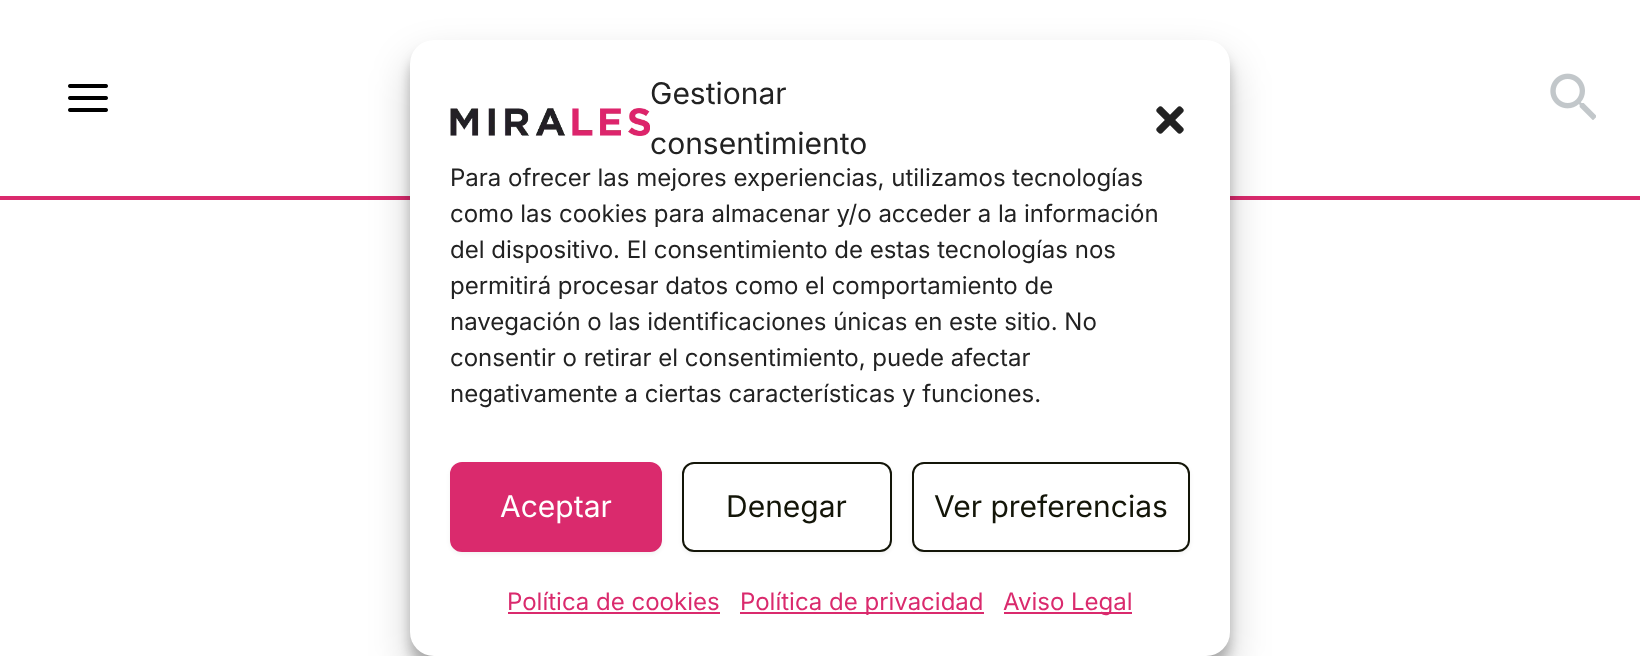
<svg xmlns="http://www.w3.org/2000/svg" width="1640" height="656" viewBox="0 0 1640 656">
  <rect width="100%" height="100%" fill="#fff"/>
  <path d="M0 196h1640v4H0z" fill="#da2a6d"/>
  <image x="68" y="84" width="40" height="28" href="img/1.png"/>
  <image x="1550" y="73" width="46" height="47" href="img/2.png"/>
  <rect x="410" y="52" width="820" height="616" rx="24" fill="#0000003b" filter="blur(6px)"/>
  <rect x="410" y="60" width="820" height="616" rx="24" fill="#00000030" filter="blur(20px)"/>
  <rect x="410" y="40" width="820" height="616" rx="24" fill="#fff"/>
  <image x="450" y="108" width="200" height="28" href="img/3.png"/>
  <image x="1156" y="106" width="28" height="28" href="img/4.png"/>
  <rect x="450" y="464" width="212" height="90" rx="12" fill="#0000000d" filter="blur(2px)"/>
  <rect x="451" y="463" width="210" height="88" rx="11" fill="#da2a6d" stroke="#da2a6d" stroke-width="2"/>
  <rect x="682" y="464" width="210" height="90" rx="12" fill="#0000000d" filter="blur(2px)"/>
  <rect x="683" y="463" width="208" height="88" rx="11" fill="#fff" stroke="#131508" stroke-width="2"/>
  <rect x="912" y="464" width="278" height="90" rx="12" fill="#0000000d" filter="blur(2px)"/>
  <rect x="913" y="463" width="276" height="88" rx="11" fill="#fff" stroke="#131508" stroke-width="2"/>
  <path d="M508 612h212v2H508z" fill="#da2a6d"/>
  <path d="M740 612h244v2H740z" fill="#da2a6d"/>
  <path d="M1004 612h128v2H1004z" fill="#da2a6d"/>
  <g font-family="Inter" font-size="30" fill="#222">
    <text x="650" y="104">Gestionar</text>
    <text x="650" y="154">consentimiento</text>
  </g>
  <g font-family="Inter" font-size="24" fill="#222">
    <text x="450" y="186">Para ofrecer las mejores experiencias, utilizamos tecnologías</text>
    <text x="450" y="222">como las cookies para almacenar y/o acceder a la información</text>
    <text x="450" y="258">del dispositivo. El consentimiento de estas tecnologías nos</text>
    <text x="450" y="294">permitirá procesar datos como el comportamiento de</text>
    <text x="450" y="330">navegación o las identificaciones únicas en este sitio. No</text>
    <text x="450" y="366">consentir o retirar el consentimiento, puede afectar</text>
    <text x="450" y="402">negativamente a ciertas características y funciones.</text>
  </g>
  <text x="500" y="517" font-family="Inter" font-size="30" fill="#fff">Aceptar</text>
  <g font-family="Inter" font-size="30" fill="#131508">
    <text x="726" y="517">Denegar</text>
    <text x="934" y="517">Ver preferencias</text>
  </g>
  <g font-family="Inter" font-size="24" fill="#da2a6d">
    <text x="507" y="610">Política de cookies</text>
    <text x="740" y="610">Política de privacidad</text>
    <text x="1003" y="610">Aviso Legal</text>
  </g>
</svg>
